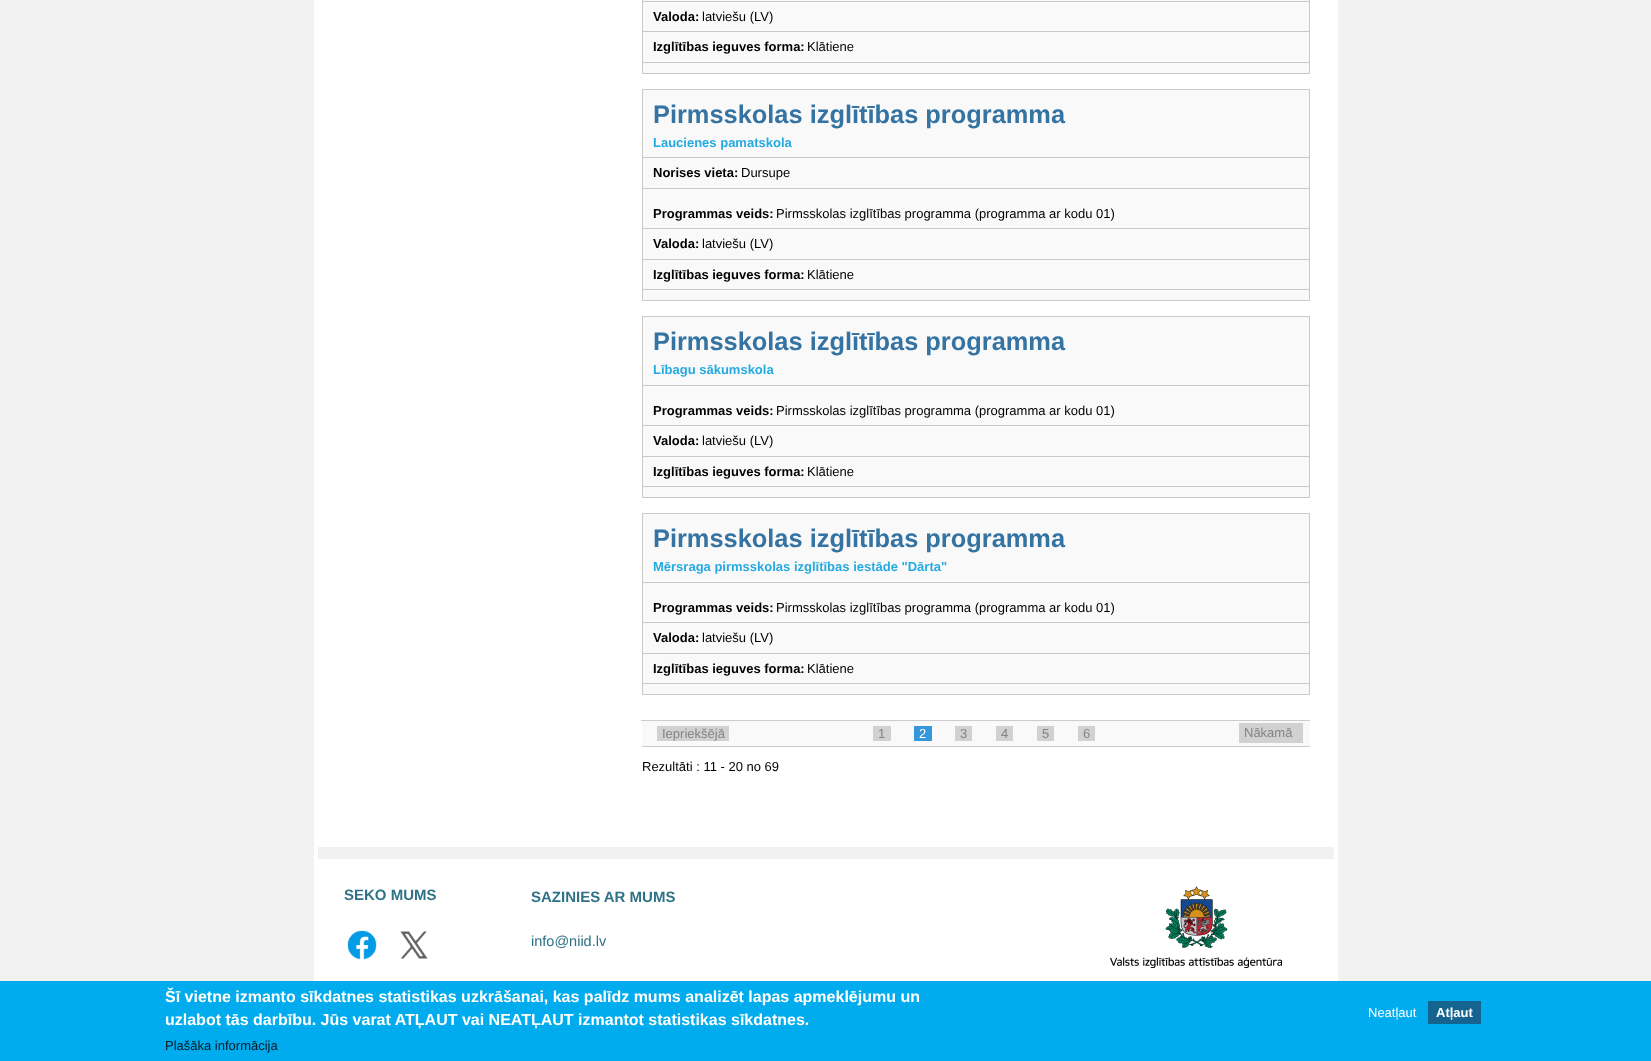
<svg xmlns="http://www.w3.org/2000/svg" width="1651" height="1061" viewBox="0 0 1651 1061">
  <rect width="100%" height="100%" fill="#f2f2f2"/>
  <path d="M314 0h1024v981H314z" fill="#fff"/>
  <path d="M642 0h667v1H642z" fill="#f9f9f9"/>
  <path d="M643 2h666v29H643z" fill="#f9f9f9"/>
  <path d="M642 1h668v1H642z" fill="#c9c9c9"/>
  <path d="M642 31h668v1H642z" fill="#c9c9c9"/>
  <path d="M642 62h668v1H642z" fill="#c9c9c9"/>
  <path d="M1309 62h1v12H1309z" fill="#c9c9c9"/>
  <path d="M1309 31h1v32H1309z" fill="#c9c9c9"/>
  <path d="M1309 0h1v32H1309z" fill="#c9c9c9"/>
  <path d="M642 73h668v1H642z" fill="#c9c9c9"/>
  <path d="M642 62h1v12H642z" fill="#c9c9c9"/>
  <path d="M642 31h1v32H642z" fill="#c9c9c9"/>
  <path d="M642 0h1v32H642z" fill="#c9c9c9"/>
  <path d="M643 32h666v30H643z" fill="#f9f9f9"/>
  <path d="M643 63h666v10H643z" fill="#f9f9f9"/>
  <path d="M643 90h666v67H643z" fill="#f9f9f9"/>
  <path d="M642 89h668v1H642z" fill="#c9c9c9"/>
  <path d="M642 157h668v1H642z" fill="#c9c9c9"/>
  <path d="M642 188h668v1H642z" fill="#c9c9c9"/>
  <path d="M642 228h668v1H642z" fill="#c9c9c9"/>
  <path d="M642 259h668v1H642z" fill="#c9c9c9"/>
  <path d="M642 289h668v1H642z" fill="#c9c9c9"/>
  <path d="M1309 289h1v12H1309z" fill="#c9c9c9"/>
  <path d="M1309 259h1v31H1309z" fill="#c9c9c9"/>
  <path d="M1309 228h1v32H1309z" fill="#c9c9c9"/>
  <path d="M1309 188h1v41H1309z" fill="#c9c9c9"/>
  <path d="M1309 157h1v32H1309z" fill="#c9c9c9"/>
  <path d="M1309 89h1v69H1309z" fill="#c9c9c9"/>
  <path d="M642 300h668v1H642z" fill="#c9c9c9"/>
  <path d="M642 289h1v12H642z" fill="#c9c9c9"/>
  <path d="M642 259h1v31H642z" fill="#c9c9c9"/>
  <path d="M642 228h1v32H642z" fill="#c9c9c9"/>
  <path d="M642 188h1v41H642z" fill="#c9c9c9"/>
  <path d="M642 157h1v32H642z" fill="#c9c9c9"/>
  <path d="M642 89h1v69H642z" fill="#c9c9c9"/>
  <path d="M643 158h666v30H643z" fill="#f9f9f9"/>
  <path d="M643 189h666v39H643z" fill="#f9f9f9"/>
  <path d="M643 229h666v30H643z" fill="#f9f9f9"/>
  <path d="M643 260h666v29H643z" fill="#f9f9f9"/>
  <path d="M643 290h666v10H643z" fill="#f9f9f9"/>
  <path d="M643 317h666v68H643z" fill="#f9f9f9"/>
  <path d="M642 316h668v1H642z" fill="#c9c9c9"/>
  <path d="M642 385h668v1H642z" fill="#c9c9c9"/>
  <path d="M642 425h668v1H642z" fill="#c9c9c9"/>
  <path d="M642 456h668v1H642z" fill="#c9c9c9"/>
  <path d="M642 486h668v1H642z" fill="#c9c9c9"/>
  <path d="M1309 486h1v12H1309z" fill="#c9c9c9"/>
  <path d="M1309 456h1v31H1309z" fill="#c9c9c9"/>
  <path d="M1309 425h1v32H1309z" fill="#c9c9c9"/>
  <path d="M1309 385h1v41H1309z" fill="#c9c9c9"/>
  <path d="M1309 316h1v70H1309z" fill="#c9c9c9"/>
  <path d="M642 497h668v1H642z" fill="#c9c9c9"/>
  <path d="M642 486h1v12H642z" fill="#c9c9c9"/>
  <path d="M642 456h1v31H642z" fill="#c9c9c9"/>
  <path d="M642 425h1v32H642z" fill="#c9c9c9"/>
  <path d="M642 385h1v41H642z" fill="#c9c9c9"/>
  <path d="M642 316h1v70H642z" fill="#c9c9c9"/>
  <path d="M643 386h666v39H643z" fill="#f9f9f9"/>
  <path d="M643 426h666v30H643z" fill="#f9f9f9"/>
  <path d="M643 457h666v29H643z" fill="#f9f9f9"/>
  <path d="M643 487h666v10H643z" fill="#f9f9f9"/>
  <path d="M643 514h666v68H643z" fill="#f9f9f9"/>
  <path d="M642 513h668v1H642z" fill="#c9c9c9"/>
  <path d="M642 582h668v1H642z" fill="#c9c9c9"/>
  <path d="M642 622h668v1H642z" fill="#c9c9c9"/>
  <path d="M642 653h668v1H642z" fill="#c9c9c9"/>
  <path d="M642 683h668v1H642z" fill="#c9c9c9"/>
  <path d="M1309 683h1v12H1309z" fill="#c9c9c9"/>
  <path d="M1309 653h1v31H1309z" fill="#c9c9c9"/>
  <path d="M1309 622h1v32H1309z" fill="#c9c9c9"/>
  <path d="M1309 582h1v41H1309z" fill="#c9c9c9"/>
  <path d="M1309 513h1v70H1309z" fill="#c9c9c9"/>
  <path d="M642 694h668v1H642z" fill="#c9c9c9"/>
  <path d="M642 683h1v12H642z" fill="#c9c9c9"/>
  <path d="M642 653h1v31H642z" fill="#c9c9c9"/>
  <path d="M642 622h1v32H642z" fill="#c9c9c9"/>
  <path d="M642 582h1v41H642z" fill="#c9c9c9"/>
  <path d="M642 513h1v70H642z" fill="#c9c9c9"/>
  <path d="M643 583h666v39H643z" fill="#f9f9f9"/>
  <path d="M643 623h666v30H643z" fill="#f9f9f9"/>
  <path d="M643 654h666v29H643z" fill="#f9f9f9"/>
  <path d="M643 684h666v10H643z" fill="#f9f9f9"/>
  <path d="M642 746h668v1H642z" fill="#ccc"/>
  <path d="M641 720h669v1H641z" fill="#ccc"/>
  <path d="M642 721h668v25H642z" fill="#f9f9f9"/>
  <path d="M657 726h72v15H657z" fill="#d1d1d1"/>
  <path d="M873 726h18v15H873z" fill="#d1d1d1"/>
  <path d="M914 726h18v15H914z" fill="#3498db"/>
  <path d="M955 726h17v15H955z" fill="#d1d1d1"/>
  <path d="M996 726h17v15H996z" fill="#d1d1d1"/>
  <path d="M1037 726h17v15H1037z" fill="#d1d1d1"/>
  <path d="M1078 726h17v15H1078z" fill="#d1d1d1"/>
  <path d="M1239 723h64v20H1239z" fill="#d1d1d1"/>
  <path d="M318 847h1016v12H318z" fill="#f1f1f1"/>
  <image x="347" y="930" width="30" height="30" href="img/1.png"/>
  <image x="400" y="931" width="28" height="28" href="img/2.png"/>
  <image x="1110" y="886" width="172" height="82" href="img/3.png"/>
  <path d="M0 981h1651v80H0z" fill="#00aced"/>
  <path d="M1428 1001h53v23H1428z" fill="#156490"/>
  <text x="653" y="21" font-family="Liberation Sans" font-size="13" font-weight="bold" fill="#000">Valoda:</text>
  <text x="702" y="21" font-family="Liberation Sans" font-size="13" fill="#000">latviešu (LV)</text>
  <text x="653" y="51" font-family="Liberation Sans" font-size="13" font-weight="bold" fill="#000">Izglītības ieguves forma:</text>
  <text x="807" y="51" font-family="Liberation Sans" font-size="13" fill="#000">Klātiene</text>
  <text x="653" y="123" font-family="Liberation Sans" font-size="25.4" font-weight="bold" fill="#3473a2">Pirmsskolas izglītības programma</text>
  <text x="653" y="147" font-family="Liberation Sans" font-size="13" font-weight="bold" fill="#25aae1">Laucienes pamatskola</text>
  <text x="653" y="177" font-family="Liberation Sans" font-size="13" font-weight="bold" fill="#000">Norises vieta:</text>
  <text x="741" y="177" font-family="Liberation Sans" font-size="13" fill="#000">Dursupe</text>
  <text x="653" y="218" font-family="Liberation Sans" font-size="13" font-weight="bold" fill="#000">Programmas veids:</text>
  <text x="776" y="218" font-family="Liberation Sans" font-size="13" fill="#000">Pirmsskolas izglītības programma (programma ar kodu 01)</text>
  <text x="653" y="248" font-family="Liberation Sans" font-size="13" font-weight="bold" fill="#000">Valoda:</text>
  <text x="702" y="248" font-family="Liberation Sans" font-size="13" fill="#000">latviešu (LV)</text>
  <text x="653" y="279" font-family="Liberation Sans" font-size="13" font-weight="bold" fill="#000">Izglītības ieguves forma:</text>
  <text x="807" y="279" font-family="Liberation Sans" font-size="13" fill="#000">Klātiene</text>
  <text x="653" y="350" font-family="Liberation Sans" font-size="25.4" font-weight="bold" fill="#3473a2">Pirmsskolas izglītības programma</text>
  <text x="653" y="374" font-family="Liberation Sans" font-size="13" font-weight="bold" fill="#25aae1">Lībagu sākumskola</text>
  <text x="653" y="415" font-family="Liberation Sans" font-size="13" font-weight="bold" fill="#000">Programmas veids:</text>
  <text x="776" y="415" font-family="Liberation Sans" font-size="13" fill="#000">Pirmsskolas izglītības programma (programma ar kodu 01)</text>
  <text x="653" y="445" font-family="Liberation Sans" font-size="13" font-weight="bold" fill="#000">Valoda:</text>
  <text x="702" y="445" font-family="Liberation Sans" font-size="13" fill="#000">latviešu (LV)</text>
  <text x="653" y="476" font-family="Liberation Sans" font-size="13" font-weight="bold" fill="#000">Izglītības ieguves forma:</text>
  <text x="807" y="476" font-family="Liberation Sans" font-size="13" fill="#000">Klātiene</text>
  <text x="653" y="547" font-family="Liberation Sans" font-size="25.4" font-weight="bold" fill="#3473a2">Pirmsskolas izglītības programma</text>
  <text x="653" y="571" font-family="Liberation Sans" font-size="13" font-weight="bold" fill="#25aae1">Mērsraga pirmsskolas izglītības iestāde "Dārta"</text>
  <text x="653" y="612" font-family="Liberation Sans" font-size="13" font-weight="bold" fill="#000">Programmas veids:</text>
  <text x="776" y="612" font-family="Liberation Sans" font-size="13" fill="#000">Pirmsskolas izglītības programma (programma ar kodu 01)</text>
  <text x="653" y="642" font-family="Liberation Sans" font-size="13" font-weight="bold" fill="#000">Valoda:</text>
  <text x="702" y="642" font-family="Liberation Sans" font-size="13" fill="#000">latviešu (LV)</text>
  <text x="653" y="673" font-family="Liberation Sans" font-size="13" font-weight="bold" fill="#000">Izglītības ieguves forma:</text>
  <text x="807" y="673" font-family="Liberation Sans" font-size="13" fill="#000">Klātiene</text>
  <g font-family="Liberation Sans" font-size="13" fill="#858484">
    <text x="662" y="738">Iepriekšējā</text>
    <text x="878" y="738">1</text>
  </g>
  <text x="919" y="738" font-family="Liberation Sans" font-size="13" fill="#fff">2</text>
  <g font-family="Liberation Sans" font-size="13" fill="#858484">
    <text x="960" y="738">3</text>
    <text x="1001" y="738">4</text>
    <text x="1042" y="738">5</text>
    <text x="1083" y="738">6</text>
    <text x="1244" y="737">Nākamā</text>
  </g>
  <text x="642" y="771" font-family="Liberation Sans" font-size="13" fill="#000">Rezultāti : 11 - 20 no 69</text>
  <g font-family="Liberation Sans" font-size="15" font-weight="bold" fill="#307386">
    <text x="344" y="900">SEKO MUMS</text>
    <text x="531" y="902">SAZINIES AR MUMS</text>
  </g>
  <text x="531" y="946" font-family="Liberation Sans" font-size="14.5" fill="#307386">info@niid.lv</text>
  <g font-family="Liberation Sans" font-size="16" font-weight="bold" fill="#fff">
    <text x="165" y="1002">Šī vietne izmanto sīkdatnes statistikas uzkrāšanai, kas palīdz mums analizēt lapas apmeklējumu un</text>
    <text x="165" y="1025">uzlabot tās darbību. Jūs varat ATĻAUT vai NEATĻAUT izmantot statistikas sīkdatnes.</text>
  </g>
  <text x="165" y="1050" font-family="Liberation Sans" font-size="13" fill="#061b27">Plašāka informācija</text>
  <text x="1368" y="1017" font-family="Liberation Sans" font-size="13" fill="#fff">Neatļaut</text>
  <text x="1436" y="1017" font-family="Liberation Sans" font-size="13" font-weight="bold" fill="#fff">Atļaut</text>
</svg>
